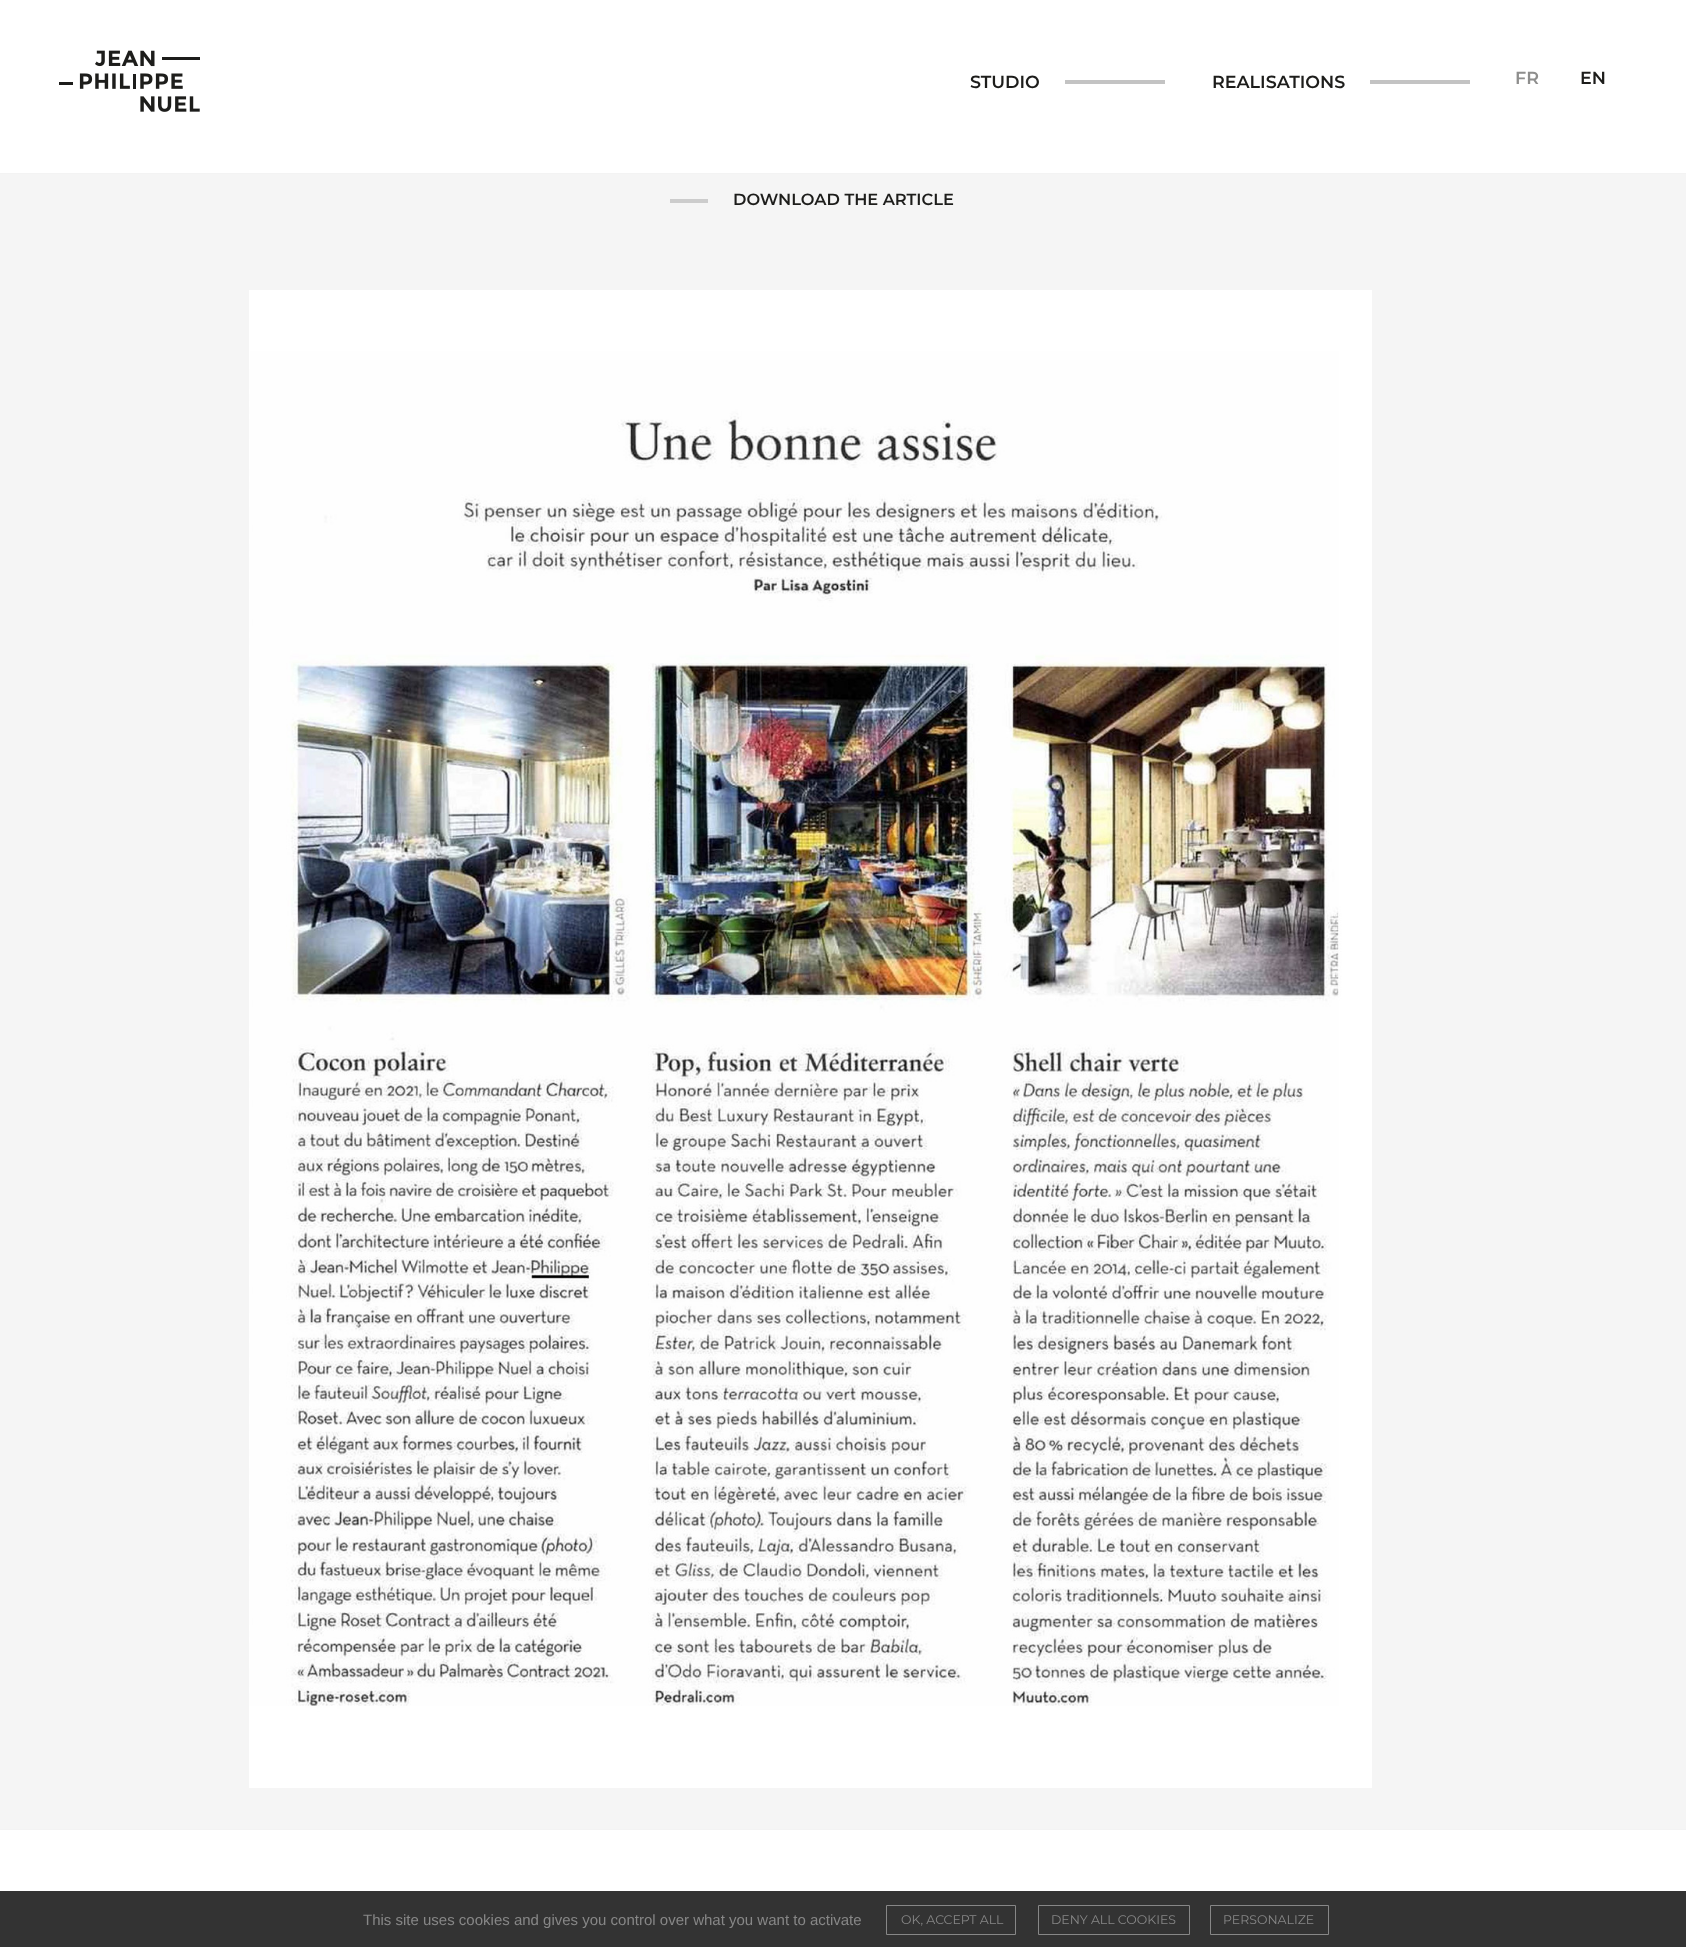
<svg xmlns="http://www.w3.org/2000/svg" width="1686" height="1947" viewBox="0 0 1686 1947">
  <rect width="100%" height="100%" fill="#fff"/>
  <path d="M0 173h1686v1H0z" fill="#f3f3f3"/>
  <image x="59" y="50" width="141" height="62" href="img/1.png"/>
  <path d="M1065 80h100v4H1065z" fill="#c3c3c3"/>
  <path d="M1370 80h100v4H1370z" fill="#c3c3c3"/>
  <path d="M0 174h1686v1655H0z" fill="#f5f5f5"/>
  <path d="M670 199h38v4H670z" fill="#ccc"/>
  <image x="249" y="290" width="1123" height="1498" href="img/2.png"/>
  <path d="M0 1829h1686v1H0z" fill="#f3f3f3"/>
  <path d="M0 1891h1686v56H0z" fill="#333"/>
  <path d="M886.5 1905.5h129v29H886.5z" fill="none" stroke="#878787"/>
  <path d="M1038.5 1905.5h151v29H1038.5z" fill="none" stroke="#878787"/>
  <path d="M1210.5 1905.5h118v29H1210.5z" fill="none" stroke="#878787"/>
  <g font-family="Montserrat" font-size="17.5" font-weight="600" fill="#1d1d1b">
    <text x="970" y="88">STUDIO</text>
    <text x="1212" y="88">REALISATIONS</text>
  </g>
  <text x="1515" y="84" font-family="Montserrat" font-size="17.5" font-weight="600" fill="#8e8e8d">FR</text>
  <text x="1580" y="84" font-family="Montserrat" font-size="17.5" font-weight="600" fill="#1d1d1b">EN</text>
  <text x="733" y="205" font-family="Montserrat" font-size="16.25" font-weight="600" fill="#1d1d1b">DOWNLOAD THE ARTICLE</text>
  <text x="363" y="1925" font-family="Liberation Sans" font-size="15" fill="#878787">This site uses cookies and gives you control over what you want to activate</text>
  <g font-family="Montserrat" font-size="12.5" fill="#878787">
    <text x="901" y="1924">OK, ACCEPT ALL</text>
    <text x="1051" y="1924">DENY ALL COOKIES</text>
    <text x="1223" y="1924">PERSONALIZE</text>
  </g>
</svg>
